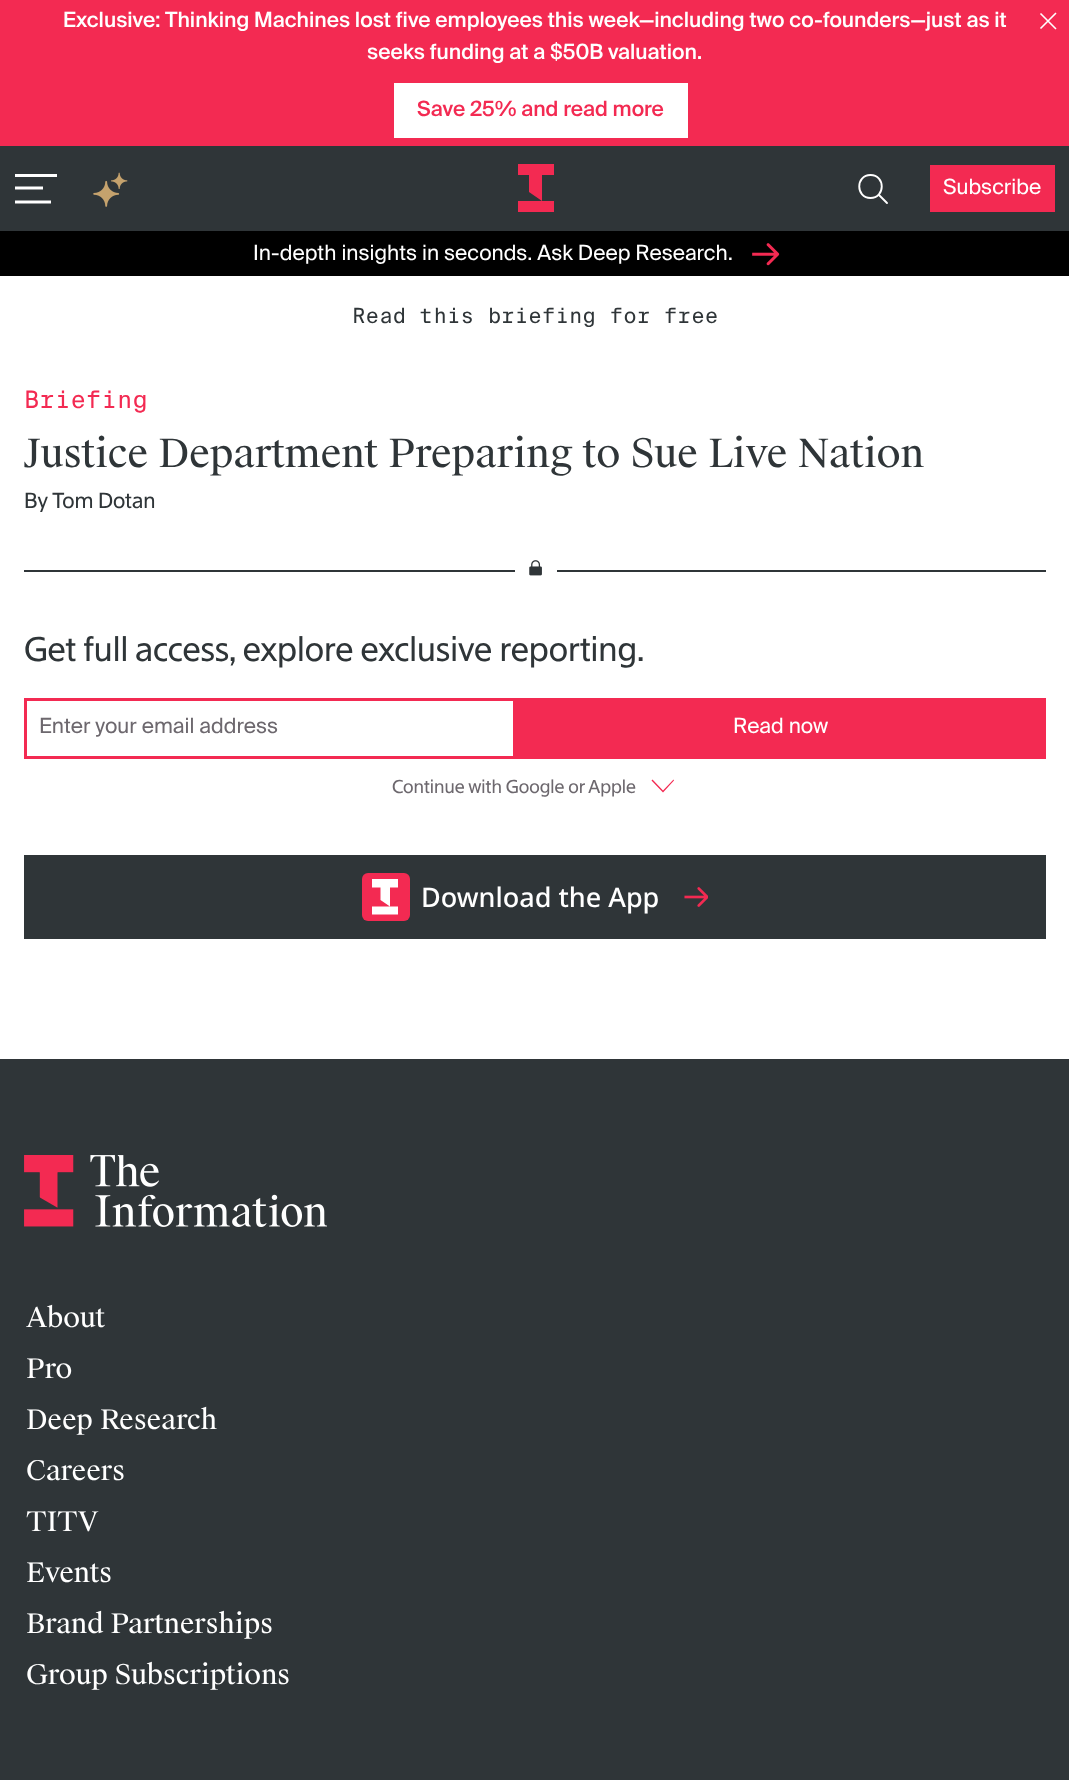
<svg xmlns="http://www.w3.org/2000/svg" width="1069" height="1780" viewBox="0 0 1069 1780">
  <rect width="100%" height="100%" fill="#fff"/>
  <path d="M0 0h1069v146H0z" fill="#f32a52"/>
  <path d="M394 83h294v55H394z" fill="#fff"/>
  <path d="M1040.5 28.5L1056 13M1056 29L1040.5 13.5" fill="none" stroke="#fff" stroke-width="1.6"/>
  <path d="M0 146h1069v85H0z" fill="#2f3538"/>
  <path d="M15 175.5H57M15 188H43M15 202H51" fill="none" stroke="#fff" stroke-width="3.1"/>
  <image x="93" y="172" width="35" height="35" href="img/1.png"/>
  <path d="M554 201H518V212H554ZM529 175V192L542 201V175H554V164H518V175Z" fill="#f32a52"/>
  <path d="M879.5 195.5L887 203M870.5 198C885.5 198 885.5 175 870.5 175C855.5 175 855.5 198 870.5 198Z" fill="none" stroke="#fff" stroke-width="1.9" stroke-linecap="round" stroke-linejoin="round"/>
  <path d="M930 165h125v47H930z" fill="#f32a52"/>
  <path d="M0 231h1069v45H0z" fill="#000"/>
  <image x="752" y="243" width="28" height="23" href="img/2.png"/>
  <path d="M24 570h1022v2H24z" fill="#2f3538"/>
  <path d="M515 570h42v2H515z" fill="#fff"/>
  <image x="529" y="560" width="13" height="16" href="img/3.png"/>
  <path d="M25.5 699.5h489v58H25.5z" fill="none" stroke="#f32a52" stroke-width="3"/>
  <path d="M516 698h530v61H516z" fill="#f32a52"/>
  <path d="M674 780.5L663 792.5L651.5 780.5L652.5 779.5L663 790.5L673.5 779.5Z" fill="#f32a52" fill-rule="evenodd"/>
  <path d="M24 855h1022v84H24z" fill="#2f3538"/>
  <rect x="362" y="873" width="48" height="48" rx="6" fill="#f32a52"/>
  <path d="M398 906.5H372V914.5H398ZM380.5 887.5V900L390 906.5V887.5H398V879H372V887.5Z" fill="#fff"/>
  <image x="684" y="887" width="24" height="20" href="img/4.png"/>
  <path d="M0 1059h1069v721H0z" fill="#2f3538"/>
  <image x="24" y="1155" width="303" height="72" href="img/5.png"/>
  <g font-family="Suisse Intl" font-size="21" font-weight="500" fill="#fff">
    <text x="63" y="27">Exclusive: Thinking Machines lost five employees this week—including two co-founders—just as it</text>
    <text x="367" y="59">seeks funding at a $50B valuation.</text>
  </g>
  <text x="417" y="116" font-family="Suisse Intl" font-size="21" font-weight="500" fill="#f32a52">Save 25% and read more</text>
  <g font-family="Suisse Intl" font-size="21" fill="#fff">
    <text x="943" y="194">Subscribe</text>
    <text x="253" y="260">In-depth insights in seconds. Ask Deep Research.</text>
  </g>
  <text x="352" y="323" font-family="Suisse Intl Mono" font-size="21" fill="#2f3538">Read this briefing for free</text>
  <text x="24" y="408" font-family="Suisse Intl Mono" font-size="24" fill="#f32a52">Briefing</text>
  <text x="24" y="467" font-family="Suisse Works" font-size="39" fill="#2f3538">Justice Department Preparing to Sue Live Nation</text>
  <g font-family="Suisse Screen" font-size="21" fill="#2f3538">
    <text x="24" y="508">By</text>
    <text x="52" y="508">Tom Dotan</text>
  </g>
  <text x="24" y="661" font-family="Suisse Screen" font-size="33" fill="#2f3538">Get full access, explore exclusive reporting.</text>
  <text x="39" y="733" font-family="Suisse Intl" font-size="21" fill="#6d686e">Enter your email address</text>
  <text x="733" y="733" font-family="Suisse Intl" font-size="21" fill="#fff">Read now</text>
  <text x="392" y="793" font-family="Suisse Screen" font-size="18" fill="#6d686e">Continue with Google or Apple</text>
  <text x="421" y="907" font-family="Noto Sans" font-size="27" font-weight="500" fill="#fff">Download the App</text>
  <g font-family="Suisse Works" font-size="27" fill="#fff">
    <text x="26" y="1327">About</text>
    <text x="26" y="1378">Pro</text>
    <text x="26" y="1429">Deep Research</text>
    <text x="26" y="1480">Careers</text>
    <text x="26" y="1531">TITV</text>
    <text x="26" y="1582">Events</text>
    <text x="26" y="1633">Brand Partnerships</text>
    <text x="26" y="1684">Group Subscriptions</text>
  </g>
</svg>
